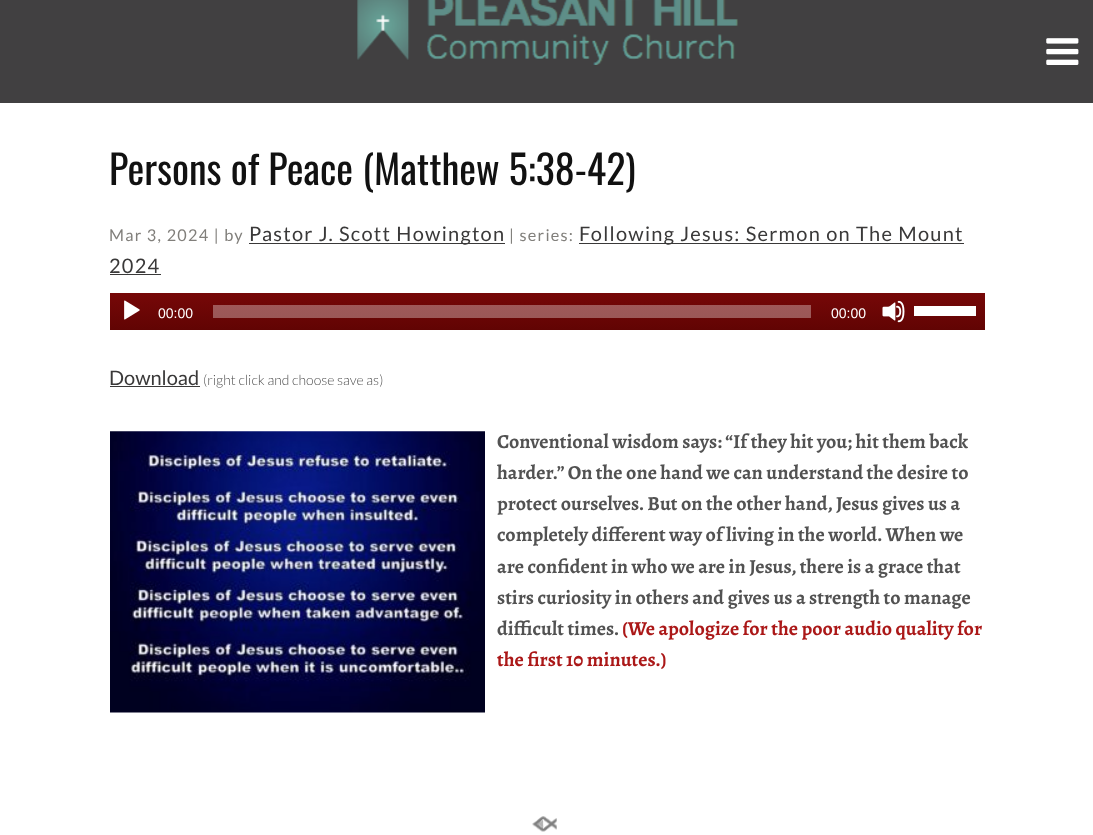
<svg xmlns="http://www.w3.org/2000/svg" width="1093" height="835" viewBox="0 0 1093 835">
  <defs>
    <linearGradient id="g1" gradientUnits="userSpaceOnUse" x1="548" y1="292" x2="548" y2="330"><stop offset="0" stop-color="#770808"/><stop offset="1" stop-color="#610403"/></linearGradient>
    <linearGradient id="g2" gradientUnits="userSpaceOnUse" x1="548" y1="292" x2="548" y2="330"><stop offset="0" stop-color="#a45a5a"/><stop offset="1" stop-color="#955756"/></linearGradient>
  </defs>
  <rect width="100%" height="100%" fill="#fff"/>
  <path d="M0 0h1093v103H0z" fill="#414041"/>
  <image x="357" y="0" width="381" height="65" href="img/1.png"/>
  <image x="1046" y="38" width="33" height="27" href="img/2.png"/>
  <path d="M249 243h256v1H249z" fill="#3a3939"/>
  <path d="M579 243h385v1H579z" fill="#3a3939"/>
  <path d="M110 274h51v1H110z" fill="#3a3939"/>
  <path d="M110 293h875v37H110z" fill="url(#g1)"/>
  <path d="M213 305h598v13H213z" fill="url(#g2)"/>
  <image x="124" y="300" width="16" height="20" href="img/3.png"/>
  <image x="882" y="300" width="23" height="23" href="img/4.png"/>
  <path d="M914 306h62v10H914z" fill="#fff"/>
  <path d="M110 386h90v1H110z" fill="#3a3939"/>
  <image x="110" y="431" width="375" height="282" href="img/5.png"/>
  <image x="532" y="816" width="25" height="16" href="img/6.png"/>
  <text x="109" y="185" font-family="Oswald" font-size="40" fill="#111">Persons of Peace (Matthew 5:38-42)</text>
  <text x="109" y="241" font-family="Lato" font-size="16.25" letter-spacing="1.25" fill="#817f7b">Mar 3, 2024 | by</text>
  <text x="249" y="241" font-family="Lato" font-size="20" letter-spacing="1.25" fill="#3a3939">Pastor J. Scott Howington</text>
  <text x="509" y="241" font-family="Lato" font-size="16.25" letter-spacing="1.25" fill="#817f7b">| series:</text>
  <g font-family="Lato" font-size="20" letter-spacing="1.25" fill="#3a3939">
    <text x="579" y="241">Following Jesus: Sermon on The Mount</text>
    <text x="109" y="273">2024</text>
  </g>
  <g font-family="Liberation Sans" font-size="14" fill="#fff">
    <text x="158" y="318">00:00</text>
    <text x="831" y="318">00:00</text>
  </g>
  <text x="109" y="385" font-family="Lato" font-size="20" fill="#3a3939">Download</text>
  <text x="203" y="385" font-family="Lato" font-size="14" font-weight="300" fill="#525252">(right click and choose save as)</text>
  <g font-family="Alegreya" font-size="20" font-weight="bold" fill="#525252">
    <text x="497" y="448">Conventional wisdom says: “If they hit you; hit them back</text>
    <text x="497" y="479">harder.” On the one hand we can understand the desire to</text>
    <text x="497" y="510">protect ourselves. But on the other hand, Jesus gives us a</text>
    <text x="497" y="541">completely different way of living in the world. When we</text>
    <text x="497" y="573">are confident in who we are in Jesus, there is a grace that</text>
    <text x="497" y="604">stirs curiosity in others and gives us a strength to manage</text>
    <text x="497" y="635">difficult times.</text>
  </g>
  <g font-family="Alegreya" font-size="20" font-weight="bold" fill="#ab1818">
    <text x="622" y="635">(We apologize for the poor audio quality for</text>
    <text x="497" y="666">the first 10 minutes.)</text>
  </g>
</svg>
